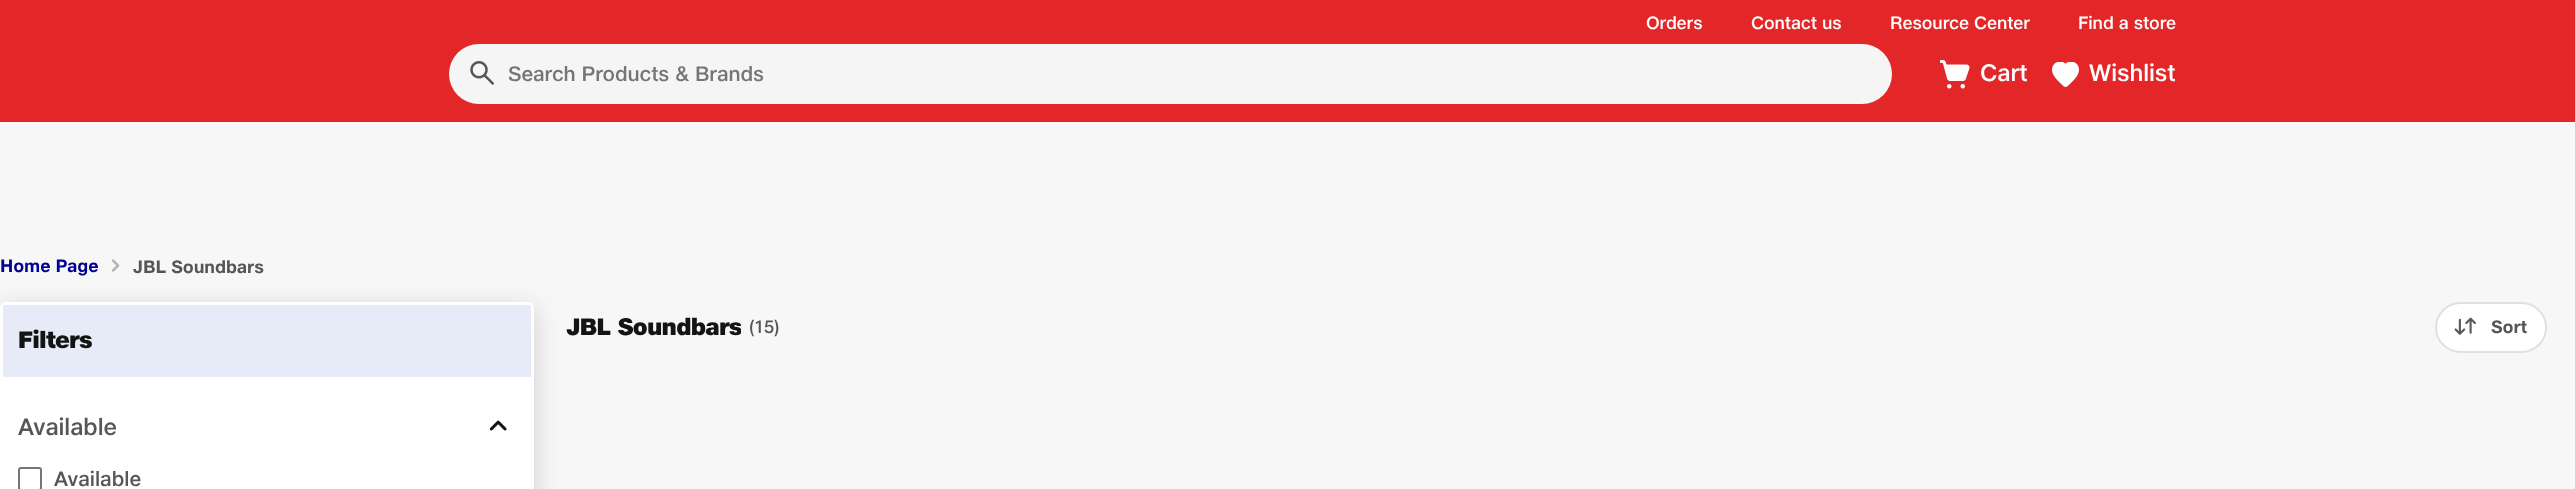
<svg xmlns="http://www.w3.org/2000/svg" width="2575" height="489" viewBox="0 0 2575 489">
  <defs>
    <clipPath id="clip1"><path d="M509 62h1353v24H509z"/></clipPath>
    <clipPath id="clip2"><path d="M558 312h183v30H558z"/></clipPath>
  </defs>
  <rect width="100%" height="100%" fill="#f7f7f7"/>
  <path d="M0 0h2575v122H0z" fill="#e32729"/>
  <rect x="449" y="44" width="1443" height="60" rx="30" fill="#f5f5f5"/>
  <image x="470" y="61" width="24" height="24" href="img/1.png"/>
  <image x="1940" y="60" width="30" height="29" href="img/2.png"/>
  <image x="2052" y="62" width="27" height="25" href="img/3.png"/>
  <image x="111" y="259" width="9" height="13" href="img/4.png"/>
  <rect x="2436" y="303" width="110" height="49" rx="24.5" fill="#fff" stroke="#e0e0e0" stroke-width="2"/>
  <image x="2454" y="317" width="22" height="18" href="img/5.png"/>
  <rect y="308" width="534" height="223" rx="6" fill="#00000029" filter="blur(12px)"/>
  <rect y="302" width="534" height="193" rx="6" fill="#fff"/>
  <path d="M3 305h528v72H3z" fill="#e7ebf8"/>
  <image x="489" y="420" width="18" height="11" href="img/6.png"/>
  <rect x="19" y="468" width="22" height="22" rx="2" fill="none" stroke="#767676" stroke-width="2"/>
  <g font-family="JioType" font-size="18" font-weight="500" letter-spacing="-0.1" fill="#fff">
    <text x="1646" y="29">Orders</text>
    <text x="1751" y="29">Contact us</text>
    <text x="1890" y="29">Resource Center</text>
    <text x="2078" y="29">Find a store</text>
  </g>
  <g clip-path="url(#clip1)">
    <text x="508" y="81" font-family="JioType" font-size="21" font-weight="500" letter-spacing="-0.1" fill="#757575">Search Products &amp; Brands</text>
  </g>
  <g font-family="JioType" font-size="24" font-weight="500" letter-spacing="-0.1" fill="#fff">
    <text x="1980" y="81">Cart</text>
    <text x="2089" y="81">Wishlist</text>
  </g>
  <text x="0" y="272" font-family="JioType" font-size="18" font-weight="bold" letter-spacing="-0.1" fill="#000093">Home Page</text>
  <text x="133" y="273" font-family="JioType" font-size="18" font-weight="bold" letter-spacing="-0.1" fill="#565656">JBL Soundbars</text>
  <g clip-path="url(#clip2)">
    <text x="566" y="335" font-family="JioType" font-size="24" font-weight="900" letter-spacing="-0.75" fill="#141414">JBL Soundbars</text>
  </g>
  <text x="749" y="333" font-family="JioType" font-size="18" font-weight="500" letter-spacing="-0.1" fill="#565656">(15)</text>
  <text x="2491" y="333" font-family="JioType" font-size="18" font-weight="bold" letter-spacing="-0.1" fill="#565656">Sort</text>
  <text x="18" y="348" font-family="JioType" font-size="24" font-weight="900" letter-spacing="-0.75" fill="#141414">Filters</text>
  <text x="18" y="435" font-family="JioType" font-size="24" font-weight="500" letter-spacing="-0.1" fill="#565656">Available</text>
  <text x="54" y="486" font-family="JioType" font-size="21" font-weight="500" fill="#565656">Available</text>
</svg>
